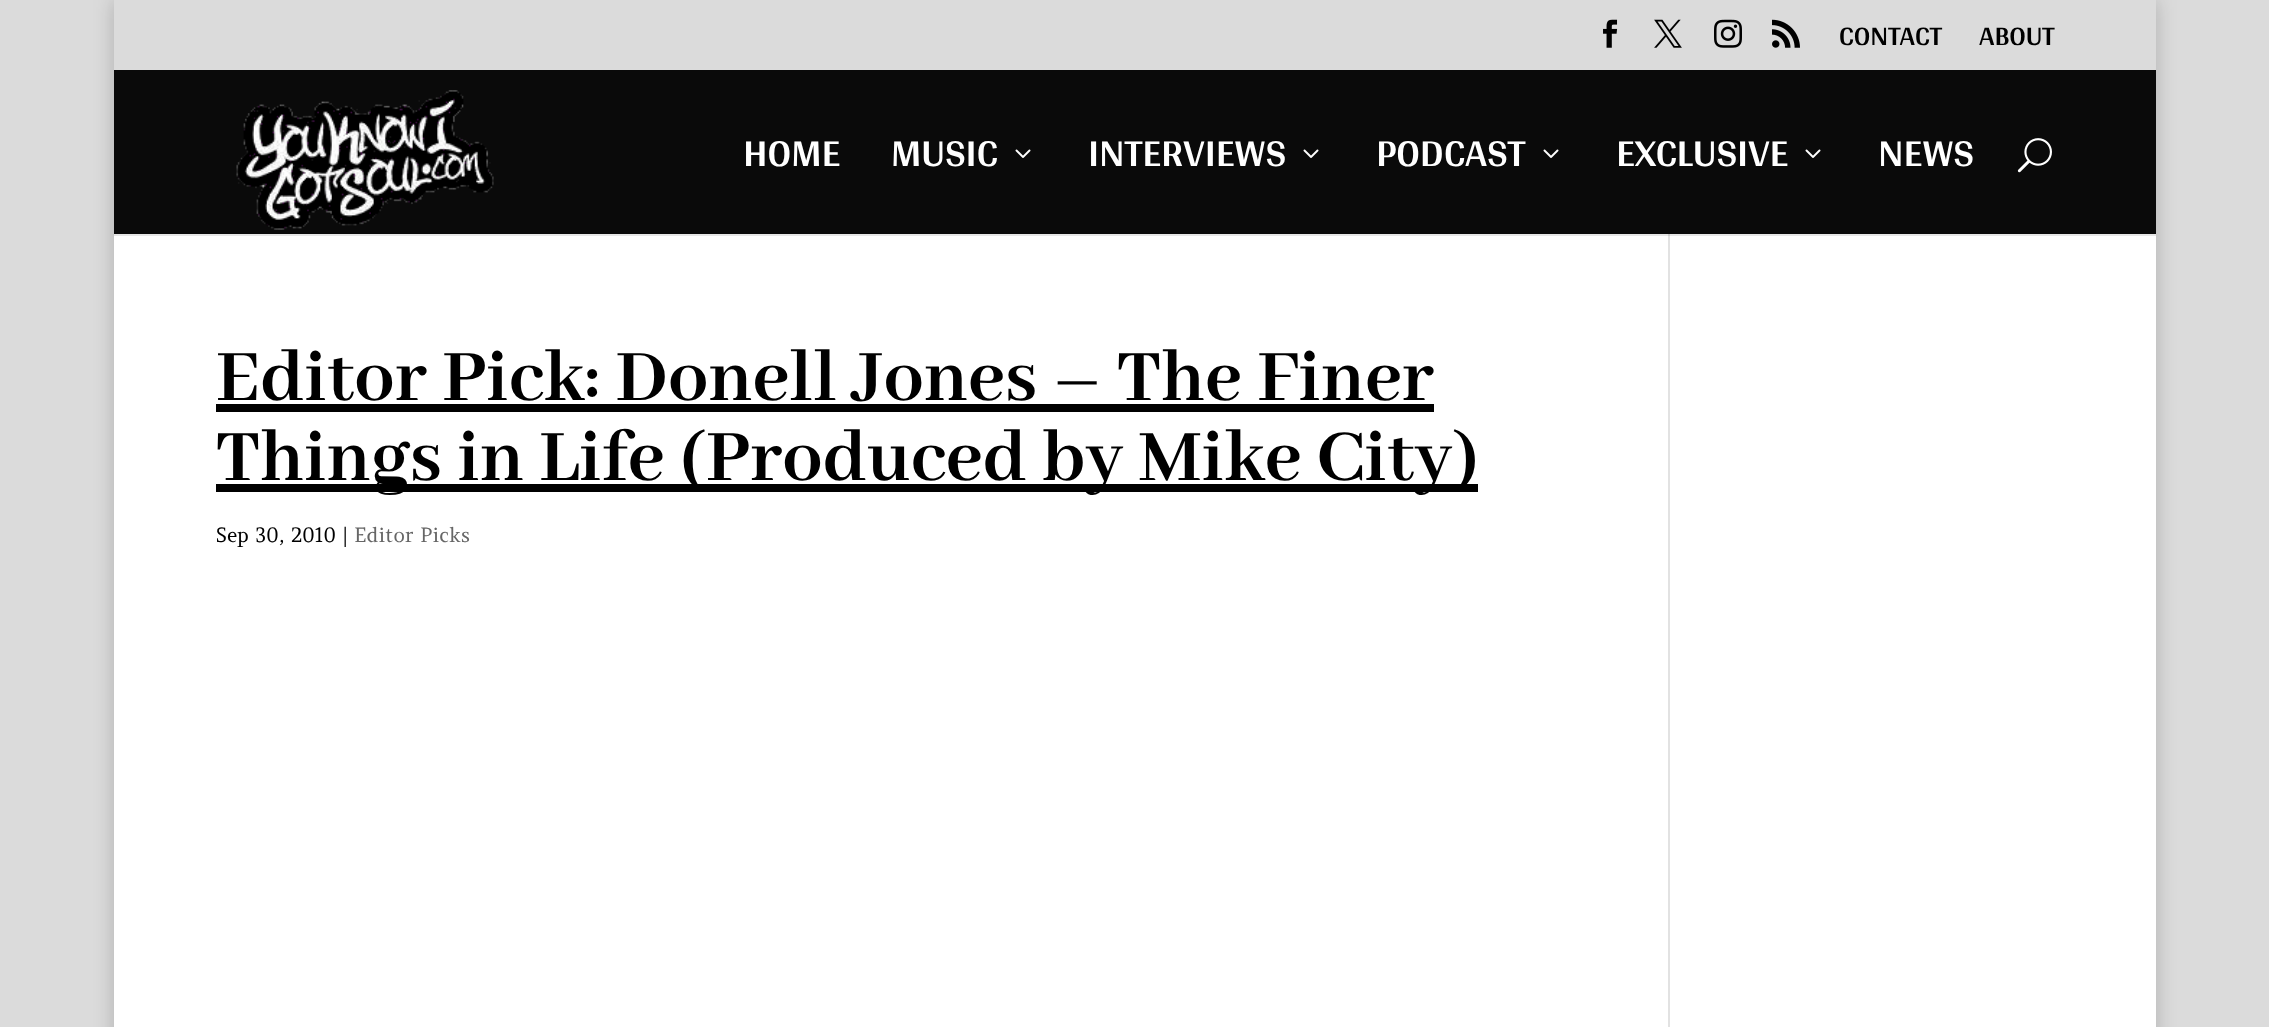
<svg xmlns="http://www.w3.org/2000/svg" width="2269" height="1027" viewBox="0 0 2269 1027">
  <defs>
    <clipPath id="clip1"><path d="M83 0H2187V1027H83ZM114 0H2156V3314H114Z" clip-rule="evenodd"/></clipPath>
  </defs>
  <rect width="100%" height="100%" fill="#dbdbdb"/>
  <g clip-path="url(#clip1)">
    <path d="M114 0h2042v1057H114z" fill="#00000033" filter="blur(10px)"/>
  </g>
  <image x="1603" y="19" width="15" height="29" href="img/1.png"/>
  <image x="1654" y="19" width="28" height="29" href="img/2.png"/>
  <image x="1714" y="19" width="28" height="29" href="img/3.png"/>
  <image x="1772" y="19" width="28" height="29" href="img/4.png"/>
  <path d="M114 70h2042v164H114z" fill="#0a0a0a"/>
  <image x="236" y="90" width="258" height="140" href="img/5.png"/>
  <image x="1015" y="149" width="16" height="9" href="img/6.png"/>
  <image x="1303" y="149" width="16" height="9" href="img/6.png"/>
  <image x="1543" y="149" width="16" height="9" href="img/6.png"/>
  <image x="1805" y="149" width="16" height="9" href="img/6.png"/>
  <image x="2017" y="138" width="35" height="35" href="img/7.png"/>
  <path d="M114 236h2042v791H114z" fill="#fff"/>
  <path d="M114 234h2042v2H114z" fill="#e6e6e6"/>
  <path d="M216 404h1218v8H216z" fill="#000"/>
  <path d="M216 484h1262v8H216z" fill="#000"/>
  <path d="M1668 236h2v791H1668z" fill="#e2e2e2"/>
  <path d="M1668 234h2v2H1668z" fill="#cbcbcb"/>
  <g font-family="Arya" font-size="28" font-weight="bold" fill="#000">
    <text x="1839" y="45">CONTACT</text>
    <text x="1979" y="45">ABOUT</text>
  </g>
  <g font-family="Arya" font-size="40" font-weight="bold" fill="#fff">
    <text x="743" y="166">HOME</text>
    <text x="891" y="166">MUSIC</text>
    <text x="1088" y="166">INTERVIEWS</text>
    <text x="1376" y="166">PODCAST</text>
    <text x="1616" y="166">EXCLUSIVE</text>
    <text x="1878" y="166">NEWS</text>
  </g>
  <g font-family="Abhaya Libre" font-size="80" font-weight="bold" fill="#000">
    <text x="216" y="400">Editor Pick: Donell Jones – The Finer</text>
    <text x="216" y="480">Things in Life (Produced by Mike City)</text>
  </g>
  <text x="216" y="542" font-family="Amethysta" font-size="20" fill="#000">Sep 30, 2010 |</text>
  <text x="354" y="542" font-family="Amethysta" font-size="20" fill="#666">Editor Picks</text>
</svg>
